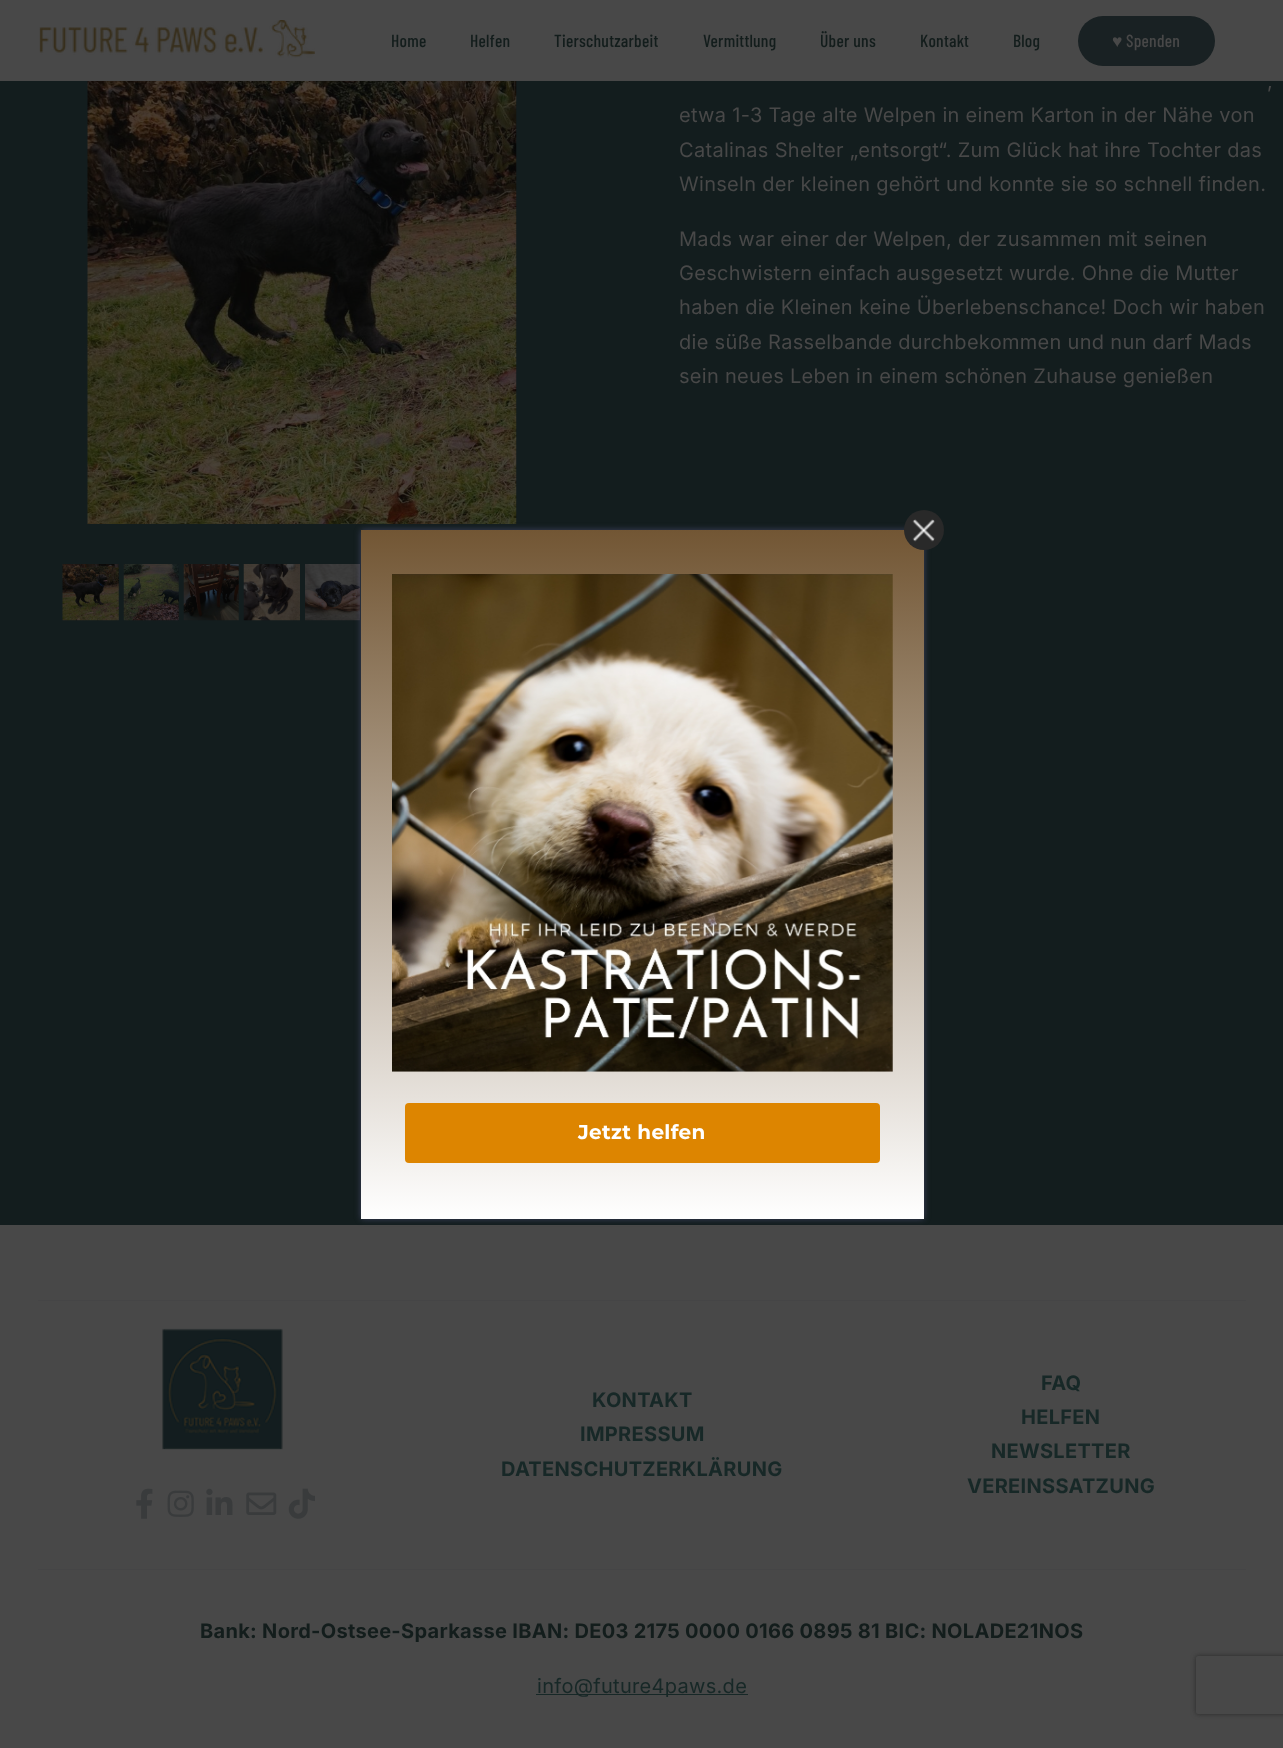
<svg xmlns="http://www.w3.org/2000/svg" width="1283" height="1748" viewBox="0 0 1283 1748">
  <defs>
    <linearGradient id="g1" gradientUnits="userSpaceOnUse" x1="643" y1="1219" x2="643" y2="530"><stop offset="0" stop-color="#fff"/><stop offset="1" stop-color="#725634"/></linearGradient>
    <clipPath id="clip1"><path d="M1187 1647H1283V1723H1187ZM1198 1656H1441C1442 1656 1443 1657 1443 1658V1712C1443 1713 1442 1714 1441 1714H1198C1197 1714 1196 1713 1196 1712V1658C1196 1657 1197 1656 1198 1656Z" clip-rule="evenodd"/></clipPath>
  </defs>
  <rect width="100%" height="100%" fill="#131d1e"/>
  <path d="M0 0h1283v81H0z" fill="#484848"/>
  <image x="39" y="20" width="276" height="38" href="img/1.png"/>
  <rect x="1078" y="16" width="137" height="50" rx="25" fill="#192123"/>
  <image x="87" y="81" width="430" height="443" href="img/2.png"/>
  <image x="62" y="564" width="57" height="57" href="img/3.png"/>
  <image x="123" y="564" width="56" height="57" href="img/4.png"/>
  <image x="183" y="564" width="56" height="57" href="img/5.png"/>
  <image x="243" y="564" width="57" height="57" href="img/6.png"/>
  <image x="305" y="564" width="55" height="57" href="img/7.png"/>
  <path d="M0 1225h1283v523H0z" fill="#484848"/>
  <path d="M38 1300h1208v1H38z" fill="#454546"/>
  <image x="162" y="1328" width="121" height="122" href="img/8.png"/>
  <image x="136" y="1488" width="17" height="31" href="img/9.png"/>
  <image x="167" y="1490" width="27" height="27" href="img/10.png"/>
  <image x="206" y="1488" width="27" height="27" href="img/11.png"/>
  <image x="246" y="1492" width="31" height="23" href="img/12.png"/>
  <image x="288" y="1488" width="27" height="31" href="img/13.png"/>
  <path d="M38 1569h1208v1H38z" fill="#454546"/>
  <path d="M536 1694h212v1H536z" fill="#172827"/>
  <path d="M361 530h563v689H361z" fill="#56568399" filter="blur(3px)"/>
  <path d="M361 530h563v689H361z" fill="url(#g1)"/>
  <circle cx="924" cy="530" r="20" fill="#292929"/>
  <image x="912" y="519" width="23" height="23" href="img/14.png"/>
  <image x="392" y="574" width="501" height="498" href="img/15.png"/>
  <rect x="405" y="1103" width="475" height="60" rx="4" fill="#dd8500"/>
  <g clip-path="url(#clip1)">
    <rect x="1196" y="1656" width="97" height="58" rx="2" fill="#272727" filter="blur(2.5px)"/>
  </g>
  <g font-family="Barlow Condensed" font-size="17.5" font-weight="500" letter-spacing="0.25" fill="#131d1c">
    <text x="391" y="47">Home</text>
    <text x="470" y="47">Helfen</text>
    <text x="554" y="47">Tierschutzarbeit</text>
    <text x="703" y="47">Vermittlung</text>
    <text x="820" y="47">Über uns</text>
    <text x="920" y="47">Kontakt</text>
    <text x="1013" y="47">Blog</text>
  </g>
  <text x="1112" y="47" font-family="Liberation Serif" font-size="17.5" letter-spacing="0.25" fill="#484848">♥</text>
  <text x="1126" y="47" font-family="Barlow Condensed" font-size="17.5" font-weight="500" letter-spacing="0.25" fill="#484848">Spenden</text>
  <g font-family="Inter" font-size="20" letter-spacing="0.3" fill="#484848">
    <text x="1267" y="88">,</text>
    <text x="679" y="122">etwa 1-3 Tage alte Welpen in einem Karton in der Nähe von</text>
    <text x="679" y="157">Catalinas Shelter „entsorgt“. Zum Glück hat ihre Tochter das</text>
    <text x="679" y="191">Winseln der kleinen gehört und konnte sie so schnell finden.</text>
    <text x="679" y="246">Mads war einer der Welpen, der zusammen mit seinen</text>
    <text x="679" y="280">Geschwistern einfach ausgesetzt wurde. Ohne die Mutter</text>
    <text x="679" y="314">haben die Kleinen keine Überlebenschance! Doch wir haben</text>
    <text x="679" y="349">die süße Rasselbande durchbekommen und nun darf Mads</text>
    <text x="679" y="383">sein neues Leben in einem schönen Zuhause genießen</text>
  </g>
  <g font-family="Inter" font-size="20" font-weight="bold" letter-spacing="0.3" fill="#172827">
    <text x="592" y="1407">KONTAKT</text>
    <text x="580" y="1441">IMPRESSUM</text>
    <text x="501" y="1476">DATENSCHUTZERKLÄRUNG</text>
    <text x="1041" y="1390">FAQ</text>
    <text x="1021" y="1424">HELFEN</text>
    <text x="991" y="1458">NEWSLETTER</text>
    <text x="967" y="1493">VEREINSSATZUNG</text>
  </g>
  <text x="200" y="1638" font-family="Inter" font-size="20" font-weight="bold" letter-spacing="0.3" fill="#131d1c">Bank: Nord-Ostsee-Sparkasse IBAN: DE03 2175 0000 0166 0895 81 BIC: NOLADE21NOS</text>
  <text x="537" y="1693" font-family="Inter" font-size="20" letter-spacing="0.3" fill="#172827">info@future4paws.de</text>
  <text x="578" y="1139" font-family="Montserrat" font-size="20" font-weight="bold" letter-spacing="0.3" fill="#fff">Jetzt helfen</text>
</svg>
